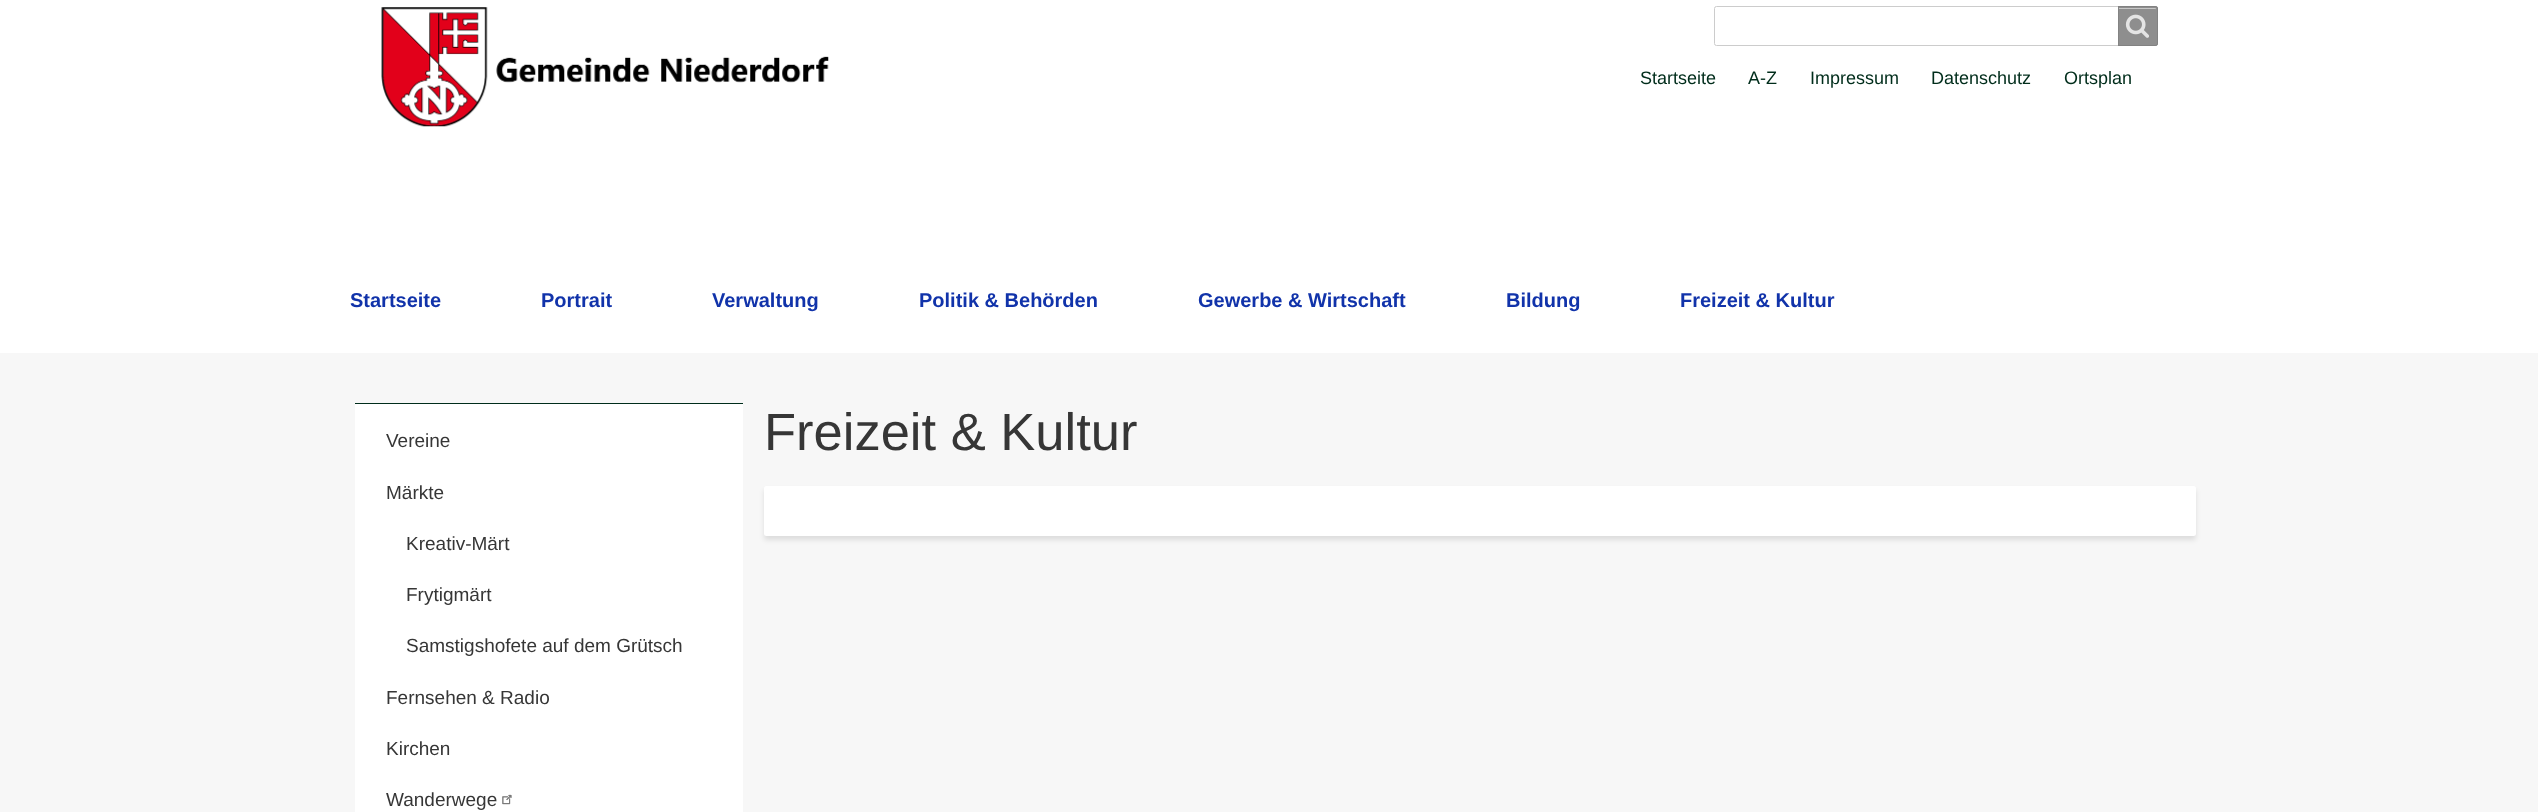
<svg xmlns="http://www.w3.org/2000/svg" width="2538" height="812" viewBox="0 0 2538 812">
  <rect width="100%" height="100%" fill="#f7f7f7"/>
  <path d="M0 0h2538v353H0z" fill="#fff"/>
  <image x="381" y="7" width="448" height="120" href="img/1.png"/>
  <rect x="1714.5" y="6.5" width="443" height="39" rx="2" fill="none" stroke="#ccc"/>
  <path d="M2118 6H2155.5C2157 6 2158 7 2158 8.5V43.5C2158 45 2157 46 2155.5 46H2118Z" fill="#828282e6"/>
  <image x="2125" y="14" width="24" height="24" href="img/2.png"/>
  <path d="M2119 9H2155C2156 9 2156 9 2156 10V9C2156 8.5 2155.5 8 2155 8H2119Z" fill="#c7c7c7"/>
  <path d="M2118.5 6.5H2155.5C2156.5 6.5 2157.5 7.5 2157.5 8.5V43.5C2157.5 44.5 2156.5 45.5 2155.5 45.5H2118.5Z" fill="none" stroke="#828282e6"/>
  <path d="M355 404h388v408H355z" fill="#fff"/>
  <path d="M355 403h388v1H355z" fill="#002d1b"/>
  <image x="502" y="794" width="10" height="11" href="img/3.png"/>
  <rect x="764" y="490" width="1432" height="50" rx="2.5" fill="#0000001a" filter="blur(2.5px)"/>
  <rect x="764" y="486" width="1432" height="50" rx="2.5" fill="#fff"/>
  <g font-family="Liberation Sans" font-size="18" fill="#002d1b">
    <text x="1640" y="84">Startseite</text>
    <text x="1748" y="84">A-Z</text>
    <text x="1810" y="84">Impressum</text>
    <text x="1931" y="84">Datenschutz</text>
    <text x="2064" y="84">Ortsplan</text>
  </g>
  <g font-family="Liberation Sans" font-size="20" font-weight="bold" fill="#13a">
    <text x="350" y="307">Startseite</text>
    <text x="541" y="307">Portrait</text>
    <text x="712" y="307">Verwaltung</text>
    <text x="919" y="307">Politik &amp; Behörden</text>
    <text x="1198" y="307">Gewerbe &amp; Wirtschaft</text>
    <text x="1506" y="307">Bildung</text>
    <text x="1680" y="307">Freizeit &amp; Kultur</text>
  </g>
  <g font-family="Liberation Sans" font-size="19" fill="#363636">
    <text x="386" y="447">Vereine</text>
    <text x="386" y="499">Märkte</text>
    <text x="406" y="550">Kreativ-Märt</text>
    <text x="406" y="601">Frytigmärt</text>
    <text x="406" y="652">Samstigshofete auf dem Grütsch</text>
    <text x="386" y="704">Fernsehen &amp; Radio</text>
    <text x="386" y="755">Kirchen</text>
    <text x="386" y="806">Wanderwege</text>
  </g>
  <text x="764" y="450" font-family="Liberation Sans" font-size="52.5" fill="#363636">Freizeit &amp; Kultur</text>
</svg>
